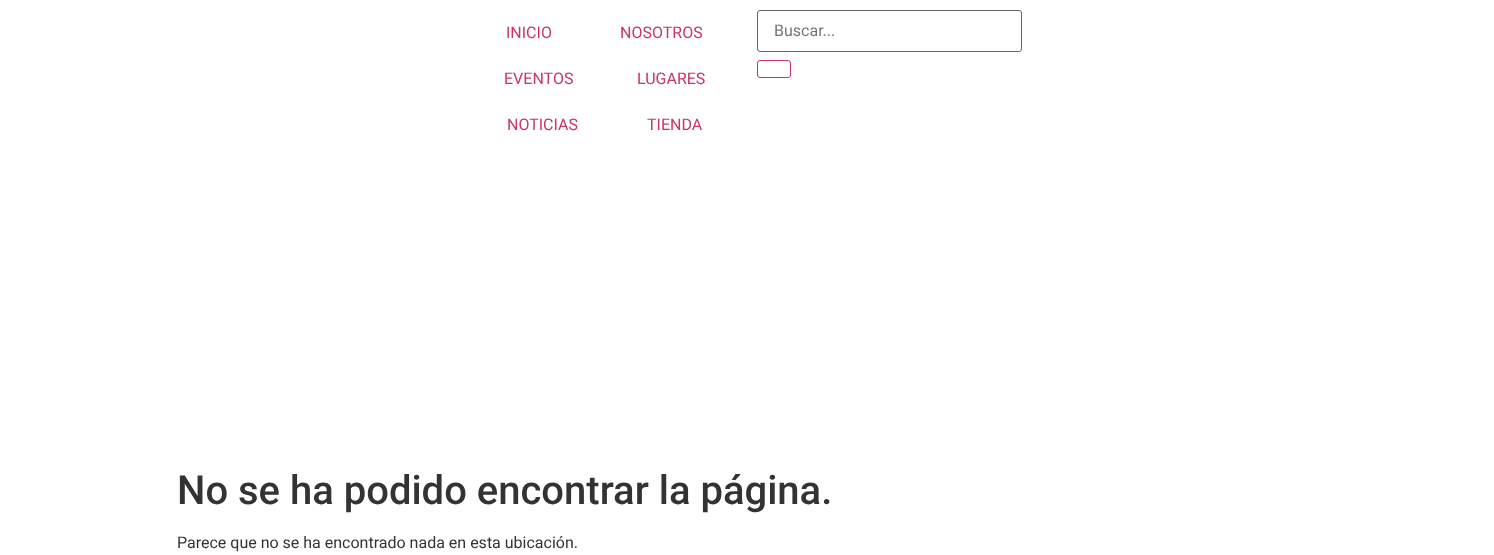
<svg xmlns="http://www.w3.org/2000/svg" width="1494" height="555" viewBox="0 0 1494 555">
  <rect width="100%" height="100%" fill="#fff"/>
  <rect x="757.5" y="10.5" width="264" height="41" rx="2.5" fill="none" stroke="#666"/>
  <rect x="757.5" y="60.5" width="33" height="17" rx="2.5" fill="none" stroke="#c36"/>
  <g font-family="Roboto" font-size="16" fill="#c36">
    <text x="506" y="38">INICIO</text>
    <text x="620" y="38">NOSOTROS</text>
    <text x="504" y="84">EVENTOS</text>
    <text x="637" y="84">LUGARES</text>
    <text x="507" y="130">NOTICIAS</text>
    <text x="647" y="130">TIENDA</text>
  </g>
  <text x="774" y="36" font-family="Roboto" font-size="16" fill="#757575">Buscar...</text>
  <text x="177" y="504" font-family="Roboto" font-size="40" font-weight="500" fill="#333">No se ha podido encontrar la página.</text>
  <text x="177" y="548" font-family="Roboto" font-size="16" fill="#333">Parece que no se ha encontrado nada en esta ubicación.</text>
</svg>
